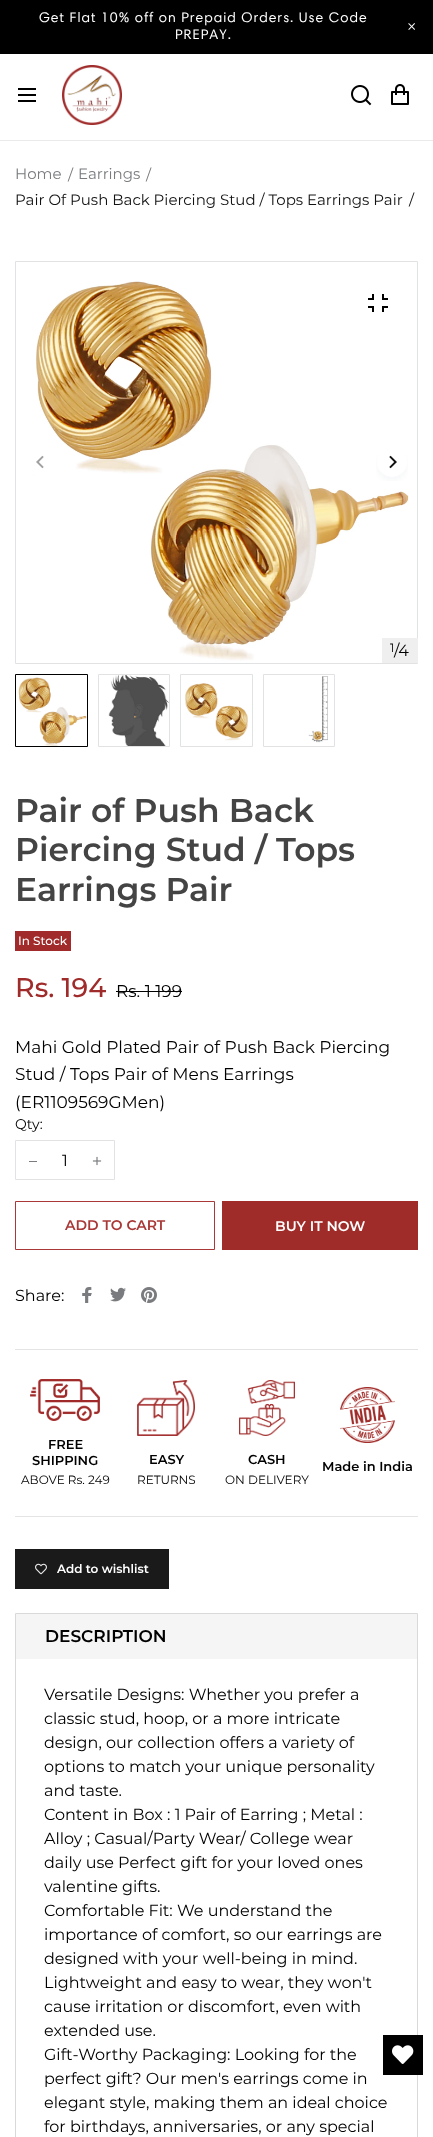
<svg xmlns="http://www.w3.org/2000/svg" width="433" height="2137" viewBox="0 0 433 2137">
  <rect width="100%" height="100%" fill="#fff"/>
  <path d="M0 0h433v54H0z" fill="#000"/>
  <image x="408" y="23" width="7" height="7" href="img/1.png"/>
  <path d="M0 140h433v1H0z" fill="#eaeaea"/>
  <path d="M18 88h18v2H18z" fill="#000"/>
  <path d="M18 94h18v2H18z" fill="#000"/>
  <path d="M18 100h18v2H18z" fill="#000"/>
  <image x="62" y="65" width="60" height="60" href="img/2.png"/>
  <image x="351" y="85" width="21" height="21" href="img/3.png"/>
  <image x="391" y="84" width="18" height="21" href="img/4.png"/>
  <image x="36" y="281" width="373" height="380" href="img/5.png"/>
  <path d="M15.5 261.5h402v402H15.5z" fill="none" stroke="#e1e2e4"/>
  <image x="368" y="294" width="20" height="18" href="img/6.png"/>
  <image x="33" y="455" width="11" height="21" href="img/7.png"/>
  <image x="376" y="455" width="32" height="26" href="img/8.png"/>
  <path d="M382 638h36v25H382z" fill="#efefef"/>
  <image x="18" y="677" width="69" height="69" href="img/9.png"/>
  <path d="M15.5 674.5h72v72H15.5z" fill="none" stroke="#000"/>
  <image x="108" y="675" width="61" height="71" href="img/10.png"/>
  <path d="M98.5 674.5h71v72H98.5z" fill="none" stroke="#e1e2e4"/>
  <image x="185" y="683" width="63" height="58" href="img/11.png"/>
  <path d="M180.5 674.5h72v72H180.5z" fill="none" stroke="#e1e2e4"/>
  <image x="308" y="676" width="20" height="67" href="img/12.png"/>
  <path d="M263.5 674.5h71v72H263.5z" fill="none" stroke="#e1e2e4"/>
  <path d="M15 931h56v20H15z" fill="#a02b2a"/>
  <path d="M116 991h66v1H116z" fill="#000"/>
  <path d="M15.5 1140.5h99v39H15.5z" fill="none" stroke="#e1e2e4"/>
  <path d="M29 1161h8v1H29z" fill="#797b7e"/>
  <image x="92" y="1156" width="10" height="10" href="img/13.png"/>
  <path d="M15.5 1201.5h199v48H15.5z" fill="none" stroke="#a93837"/>
  <path d="M222 1201h196v49H222z" fill="#a02c29"/>
  <image x="82" y="1287" width="10" height="16" href="img/14.png"/>
  <image x="110" y="1287" width="16" height="15" href="img/15.png"/>
  <image x="141" y="1287" width="16" height="16" href="img/16.png"/>
  <path d="M15 1349h403v1H15z" fill="#e4e4e4"/>
  <path d="M15 1516h403v1H15z" fill="#e4e4e4"/>
  <image x="30" y="1379" width="70" height="42" href="img/17.png"/>
  <image x="137" y="1380" width="58" height="56" href="img/18.png"/>
  <image x="239" y="1380" width="56" height="56" href="img/19.png"/>
  <image x="340" y="1387" width="55" height="56" href="img/20.png"/>
  <path d="M15 1549h154v40H15z" fill="#1a1a1a"/>
  <image x="35" y="1563" width="12" height="12" href="img/21.png"/>
  <path d="M15.5 1613.5h402v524H15.5z" fill="none" stroke="#d9d9d9"/>
  <path d="M16 1614h401v45H16z" fill="#f5f5f5"/>
  <path d="M383 2035h40v40H383z" fill="#000"/>
  <image x="392" y="2045" width="22" height="19" href="img/22.png"/>
  <g font-family="'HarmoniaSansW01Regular'" font-size="14" letter-spacing="1" fill="#fff">
    <text x="39" y="22">Get Flat 10% off on Prepaid Orders. Use Code</text>
    <text x="175" y="39">PREPAY.</text>
  </g>
  <g font-family="Montserrat" font-size="15" fill="#797b7e">
    <text x="15" y="179">Home</text>
    <text x="68" y="180">/</text>
    <text x="78" y="179">Earrings</text>
    <text x="146" y="180">/</text>
  </g>
  <g font-family="Montserrat" font-size="15" fill="#121212">
    <text x="15" y="205">Pair Of Push Back Piercing Stud / Tops Earrings Pair</text>
    <text x="409" y="205">/</text>
  </g>
  <text x="390" y="652" font-family="Montserrat" font-size="12" fill="#000">1</text>
  <text x="394" y="656" font-family="Montserrat" font-size="16" fill="#000">/4</text>
  <g font-family="Montserrat" font-size="33" font-weight="600" fill="#444">
    <text x="15" y="822">Pair of Push Back</text>
    <text x="15" y="861">Piercing Stud / Tops</text>
    <text x="15" y="901">Earrings Pair</text>
  </g>
  <text x="18" y="945" font-family="Montserrat" font-size="12" font-weight="500" fill="#fff">In Stock</text>
  <text x="15" y="997" font-family="Montserrat" font-size="27" font-weight="500" fill="#9f2b2a">Rs. 194</text>
  <g font-family="Montserrat" font-size="17" fill="#000">
    <text x="116" y="997">Rs. 1 199</text>
    <text x="15" y="1053">Mahi Gold Plated Pair of Push Back Piercing</text>
    <text x="15" y="1080">Stud / Tops Pair of Mens Earrings</text>
    <text x="15" y="1108">(ER1109569GMen)</text>
  </g>
  <text x="15" y="1129" font-family="Montserrat" font-size="14" fill="#000">Qty:</text>
  <text x="62" y="1166" font-family="Montserrat" font-size="16" fill="#000">1</text>
  <text x="65" y="1230" font-family="Montserrat" font-size="14" font-weight="600" fill="#a93837">ADD TO CART</text>
  <text x="275" y="1231" font-family="Montserrat" font-size="14" font-weight="600" fill="#fff">BUY IT NOW</text>
  <text x="15" y="1301" font-family="Montserrat" font-size="16" fill="#000">Share:</text>
  <g font-family="Montserrat" font-size="13" font-weight="600" fill="#000">
    <text x="48" y="1449">FREE</text>
    <text x="32" y="1465">SHIPPING</text>
  </g>
  <text x="21" y="1484" font-family="Montserrat" font-size="12" fill="#000">ABOVE Rs. 249</text>
  <text x="149" y="1464" font-family="Montserrat" font-size="13" font-weight="600" fill="#000">EASY</text>
  <text x="137" y="1484" font-family="Montserrat" font-size="12" fill="#000">RETURNS</text>
  <text x="248" y="1464" font-family="Montserrat" font-size="13" font-weight="600" fill="#000">CASH</text>
  <text x="225" y="1484" font-family="Montserrat" font-size="12" fill="#000">ON DELIVERY</text>
  <text x="322" y="1471" font-family="Montserrat" font-size="13" font-weight="600" fill="#000">Made in India</text>
  <text x="57" y="1573" font-family="Montserrat" font-size="12" font-weight="600" fill="#fff">Add to wishlist</text>
  <text x="45" y="1642" font-family="Montserrat" font-size="17" font-weight="600" fill="#000">DESCRIPTION</text>
  <g font-family="Montserrat" font-size="16" fill="#000">
    <text x="44" y="1700">Versatile Designs: Whether you prefer a</text>
    <text x="44" y="1724">classic stud, hoop, or a more intricate</text>
    <text x="44" y="1748">design, our collection offers a variety of</text>
    <text x="44" y="1772">options to match your unique personality</text>
    <text x="44" y="1796">and taste.</text>
    <text x="44" y="1820">Content in Box : 1 Pair of Earring ; Metal :</text>
    <text x="44" y="1844">Alloy ; Casual/Party Wear/ College wear</text>
    <text x="44" y="1868">daily use Perfect gift for your loved ones</text>
    <text x="44" y="1892">valentine gifts.</text>
    <text x="44" y="1916">Comfortable Fit: We understand the</text>
    <text x="44" y="1940">importance of comfort, so our earrings are</text>
    <text x="44" y="1964">designed with your well-being in mind.</text>
    <text x="44" y="1988">Lightweight and easy to wear, they won't</text>
    <text x="44" y="2012">cause irritation or discomfort, even with</text>
    <text x="44" y="2036">extended use.</text>
    <text x="44" y="2060">Gift-Worthy Packaging: Looking for the</text>
    <text x="44" y="2084">perfect gift? Our men's earrings come in</text>
    <text x="44" y="2108">elegant style, making them an ideal choice</text>
    <text x="44" y="2132">for birthdays, anniversaries, or any special</text>
  </g>
</svg>
